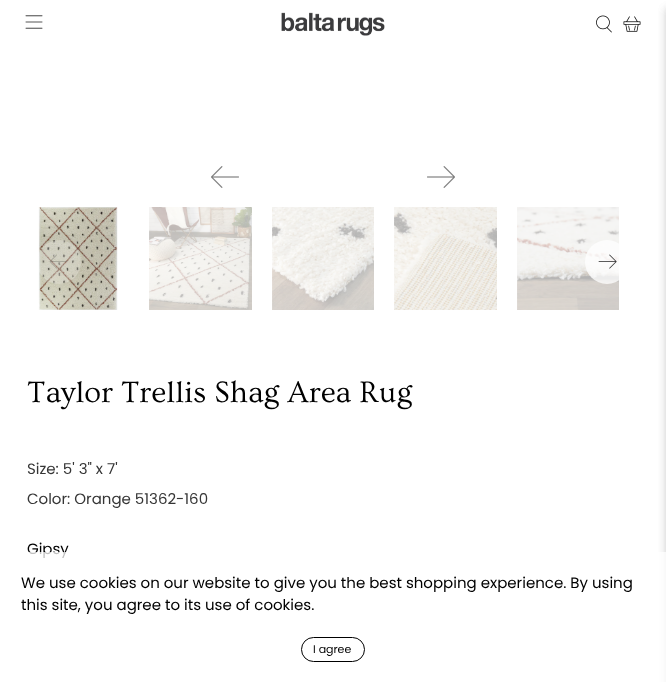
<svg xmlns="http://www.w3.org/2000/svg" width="666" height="682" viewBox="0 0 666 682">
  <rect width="100%" height="100%" fill="#fff"/>
  <image x="25" y="15" width="18" height="14" href="img/1.png"/>
  <image x="281" y="12" width="104" height="24" href="img/2.png"/>
  <image x="596" y="15" width="16" height="18" href="img/3.png"/>
  <image x="623" y="16" width="18" height="16" href="img/4.png"/>
  <path d="M666 8h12v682H666z" fill="#0a0a0a1a" filter="blur(4px)"/>
  <image x="211" y="166" width="28" height="22" href="img/5.png"/>
  <image x="427" y="166" width="28" height="22" href="img/6.png"/>
  <image x="38" y="207" width="80" height="103" href="img/7.png"/>
  <image x="149" y="207" width="103" height="103" href="img/8.png"/>
  <image x="272" y="207" width="102" height="103" href="img/9.png"/>
  <image x="394" y="207" width="103" height="103" href="img/10.png"/>
  <image x="517" y="207" width="102" height="103" href="img/11.png"/>
  <circle cx="59" cy="262" r="22" fill="#ffffff38"/>
  <image x="49" y="254" width="19" height="15" href="img/12.png"/>
  <circle cx="607" cy="262" r="22" fill="#ffffffbf"/>
  <image x="598" y="254" width="19" height="15" href="img/13.png"/>
  <path d="M666 8h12v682H666z" fill="#0a0a0a1a" filter="blur(4px)"/>
  <text x="27" y="402" font-family="Ovo" font-size="31" fill="#000">Taylor Trellis Shag Area Rug</text>
  <g font-family="Poppins" font-size="15" fill="#363636">
    <text x="27" y="474">Size: 5' 3" x 7'</text>
    <text x="27" y="504">Color: Orange 51362-160</text>
  </g>
  <text x="27" y="554" font-family="Poppins" font-size="15" fill="#000">Gipsy</text>
  <path d="M28 552h638v130H28z" fill="#ffffffbf"/>
  <g font-family="Poppins" font-size="15" fill="#000">
    <text x="21" y="588">We use cookies on our website to give you the best shopping experience. By using</text>
    <text x="21" y="610">this site, you agree to its use of cookies.</text>
  </g>
  <rect x="301.5" y="637.5" width="63" height="24" rx="12" fill="none" stroke="#000"/>
  <text x="313" y="653" font-family="Poppins" font-size="11" fill="#000">I agree</text>
</svg>
